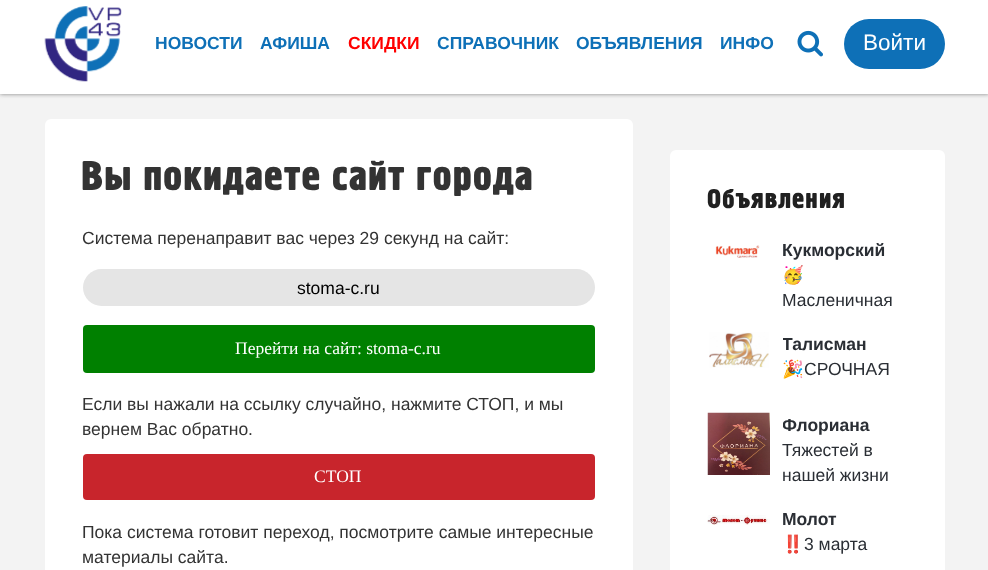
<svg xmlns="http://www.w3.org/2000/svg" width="988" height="570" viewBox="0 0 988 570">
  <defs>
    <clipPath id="clip1"><path d="M783 263h125v50H783z"/></clipPath>
    <clipPath id="clip2"><path d="M783 331h125v25H783z"/></clipPath>
    <clipPath id="clip3"><path d="M783 356h125v25H783z"/></clipPath>
    <clipPath id="clip4"><path d="M783 413h125v25H783z"/></clipPath>
    <clipPath id="clip5"><path d="M783 531h125v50H783z"/></clipPath>
  </defs>
  <rect width="100%" height="100%" fill="#f3f3f3"/>
  <path d="M0 0h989v94H0z" fill="#808080" filter="blur(2px)"/>
  <path d="M0 0h988v94H0z" fill="#fff"/>
  <image x="44" y="6" width="78" height="76" href="img/1.png"/>
  <image x="797" y="30" width="26" height="27" href="img/2.png"/>
  <rect x="844" y="19" width="101" height="50" rx="25" fill="#0e70b7"/>
  <rect x="45" y="119" width="588" height="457" rx="6" fill="#fff"/>
  <rect x="83" y="269" width="512" height="37" rx="18.5" fill="#e5e5e5"/>
  <rect x="83" y="325" width="512" height="48" rx="4" fill="#008000"/>
  <rect x="83" y="454" width="512" height="46" rx="4" fill="#c8252c"/>
  <rect x="670" y="150" width="275" height="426" rx="6" fill="#fff"/>
  <image x="715" y="245" width="45" height="13" href="img/3.png"/>
  <image x="709" y="332" width="60" height="36" href="img/4.png"/>
  <image x="707" y="412" width="63" height="63" href="img/5.png"/>
  <image x="707" y="515" width="63" height="10" href="img/6.png"/>
  <g font-family="Liberation Sans" font-size="17.5" font-weight="bold" fill="#0e70b7">
    <text x="155" y="49">НОВОСТИ</text>
    <text x="260" y="49">АФИША</text>
  </g>
  <text x="348" y="49" font-family="Liberation Sans" font-size="17.5" font-weight="bold" fill="#f00">СКИДКИ</text>
  <g font-family="Liberation Sans" font-size="17.5" font-weight="bold" fill="#0e70b7">
    <text x="437" y="49">СПРАВОЧНИК</text>
    <text x="576" y="49">ОБЪЯВЛЕНИЯ</text>
    <text x="720" y="49">ИНФО</text>
  </g>
  <text x="863" y="50" font-family="Liberation Sans" font-size="22.5" fill="#fff">Войти</text>
  <text x="81" y="190" font-family="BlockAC" font-size="40.25" letter-spacing="1.25" fill="#333">Вы покидаете сайт города</text>
  <text x="82" y="244" font-family="Liberation Sans" font-size="17.5" fill="#333">Система перенаправит вас через 29 секунд на сайт:</text>
  <text x="297" y="294" font-family="Liberation Sans" font-size="17.5" fill="#000">stoma-c.ru</text>
  <text x="235" y="354" font-family="Liberation Serif" font-size="17.5" fill="#fff">Перейти на сайт: stoma-c.ru</text>
  <g font-family="Liberation Sans" font-size="17.5" fill="#333">
    <text x="82" y="410">Если вы нажали на ссылку случайно, нажмите СТОП, и мы</text>
    <text x="82" y="435">вернем Вас обратно.</text>
  </g>
  <text x="314" y="482" font-family="Liberation Serif" font-size="17.5" fill="#fff">СТОП</text>
  <g font-family="Liberation Sans" font-size="17.5" fill="#333">
    <text x="82" y="538">Пока система готовит переход, посмотрите самые интересные</text>
    <text x="82" y="563">материалы сайта.</text>
  </g>
  <text x="707" y="208" font-family="BlockAC" font-size="26.25" letter-spacing="1.25" fill="#202020">Объявления</text>
  <text x="782" y="256" font-family="Liberation Sans" font-size="17.5" font-weight="bold" fill="#2a2e34">Кукморский</text>
  <g clip-path="url(#clip1)">
    <text x="782" y="281" font-family="Noto Color Emoji" font-size="17.5" fill="#2a2e34">🥳</text>
  </g>
  <text x="782" y="306" font-family="Liberation Sans" font-size="17.5" fill="#2a2e34">Масленичная</text>
  <g clip-path="url(#clip2)">
    <text x="782" y="350" font-family="Liberation Sans" font-size="17.5" font-weight="bold" fill="#2a2e34">Талисман</text>
  </g>
  <g clip-path="url(#clip3)">
    <text x="782" y="375" font-family="Noto Color Emoji" font-size="17.5" fill="#2a2e34">🎉</text>
  </g>
  <text x="804" y="375" font-family="Liberation Sans" font-size="17.5" fill="#2a2e34">СРОЧНАЯ</text>
  <g clip-path="url(#clip4)">
    <text x="782" y="431" font-family="Liberation Sans" font-size="17.5" font-weight="bold" fill="#2a2e34">Флориана</text>
  </g>
  <g font-family="Liberation Sans" font-size="17.5" fill="#2a2e34">
    <text x="782" y="456">Тяжестей в</text>
    <text x="782" y="481">нашей жизни</text>
  </g>
  <text x="782" y="525" font-family="Liberation Sans" font-size="17.5" font-weight="bold" fill="#2a2e34">Молот</text>
  <g clip-path="url(#clip5)">
    <text x="782" y="550" font-family="Noto Color Emoji" font-size="17.5" fill="#2a2e34">‼️</text>
  </g>
  <text x="804" y="550" font-family="Liberation Sans" font-size="17.5" fill="#2a2e34">3 марта</text>
</svg>
